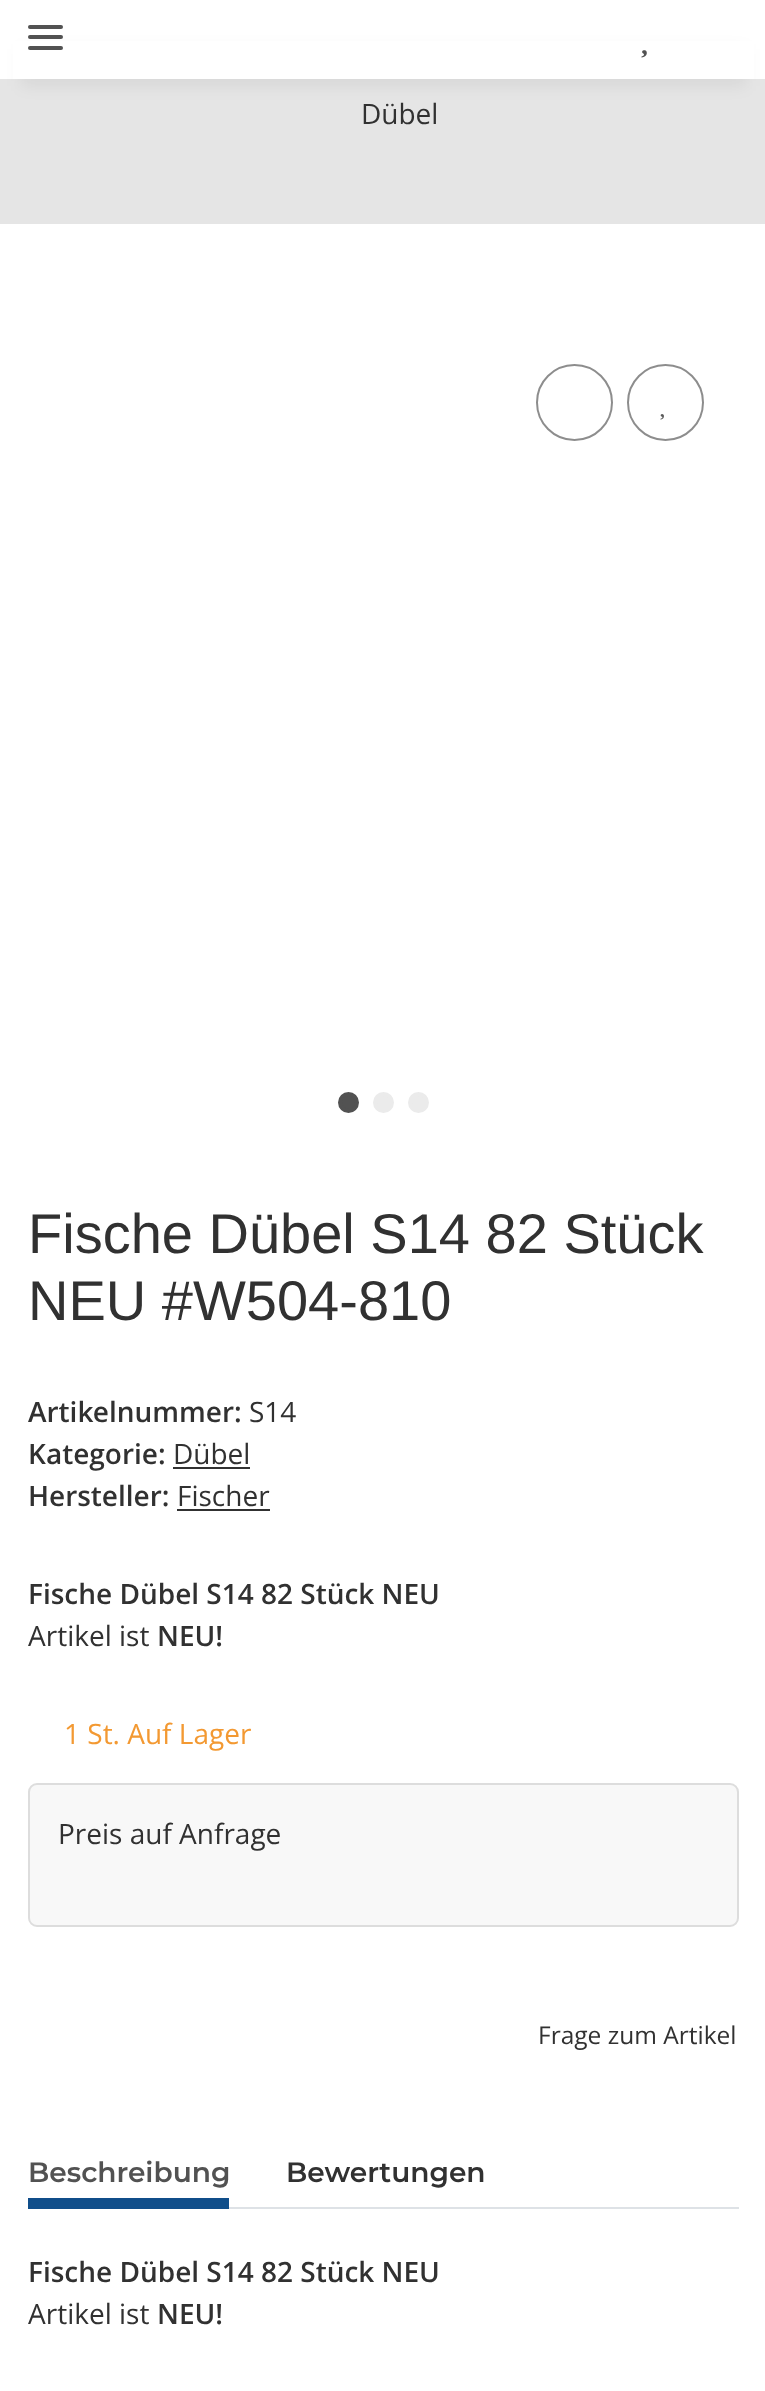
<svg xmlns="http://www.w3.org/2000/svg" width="765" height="2391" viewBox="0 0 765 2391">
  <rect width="100%" height="100%" fill="#fff"/>
  <path d="M0 79h765v145H0z" fill="#e5e5e5"/>
  <path d="M21 49h725v37H21z" fill="#0000000f" filter="blur(8px)"/>
  <path d="M13 41h741v38H13z" fill="#fff"/>
  <rect x="28" y="35" width="35" height="4" rx="2" fill="#525252"/>
  <rect x="28" y="25" width="35" height="4" rx="2" fill="#525252"/>
  <rect x="28" y="46" width="35" height="4" rx="2" fill="#525252"/>
  <image x="641" y="50" width="6" height="8" href="img/1.png"/>
  <circle cx="574.5" cy="402.5" r="37.5" fill="none" stroke="#8d8d8d" stroke-width="2"/>
  <circle cx="665.5" cy="402.5" r="37.5" fill="none" stroke="#8d8d8d" stroke-width="2"/>
  <image x="660" y="414" width="4" height="6" href="img/2.png"/>
  <circle cx="348.5" cy="1102.5" r="8.5" fill="#525252" stroke="#525252" stroke-width="4"/>
  <circle cx="383.5" cy="1102.5" r="8.5" fill="#ebebeb" stroke="#ebebeb" stroke-width="4"/>
  <circle cx="418.5" cy="1102.5" r="8.5" fill="#ebebeb" stroke="#ebebeb" stroke-width="4"/>
  <path d="M173 1467h77v2H173z" fill="#313131"/>
  <path d="M177 1509h93v2H177z" fill="#313131"/>
  <rect x="29" y="1784" width="709" height="142" rx="8" fill="#f8f8f8" stroke="#ddd" stroke-width="2"/>
  <path d="M229 2207h510v2H229z" fill="#dee2e6"/>
  <path d="M28 2198h201v11H28z" fill="#104e8a"/>
  <text x="361" y="124" font-family="Open Sans" font-size="28" fill="#313131">Dübel</text>
  <g font-family="Liberation Sans" font-size="56" fill="#313131">
    <text x="28" y="1253">Fische Dübel S14 82 Stück</text>
    <text x="28" y="1320">NEU #W504-810</text>
  </g>
  <text x="28" y="1422" font-family="Open Sans" font-size="28" font-weight="600" fill="#313131">Artikelnummer:</text>
  <text x="249" y="1422" font-family="Open Sans" font-size="28" fill="#313131">S14</text>
  <text x="28" y="1464" font-family="Open Sans" font-size="28" font-weight="600" fill="#313131">Kategorie:</text>
  <text x="173" y="1464" font-family="Open Sans" font-size="28" fill="#313131">Dübel</text>
  <text x="28" y="1506" font-family="Open Sans" font-size="28" font-weight="600" fill="#313131">Hersteller:</text>
  <text x="177" y="1506" font-family="Open Sans" font-size="28" fill="#313131">Fischer</text>
  <text x="28" y="1604" font-family="Open Sans" font-size="28" font-weight="600" fill="#313131">Fische Dübel S14 82 Stück NEU</text>
  <text x="28" y="1646" font-family="Open Sans" font-size="28" fill="#313131">Artikel ist</text>
  <text x="157" y="1646" font-family="Open Sans" font-size="28" font-weight="600" fill="#313131">NEU!</text>
  <text x="64" y="1744" font-family="Open Sans" font-size="28" fill="#f39932">1 St. Auf Lager</text>
  <text x="58" y="1844" font-family="Open Sans" font-size="28" fill="#313131">Preis auf Anfrage</text>
  <text x="538" y="2044" font-family="Open Sans" font-size="24.5" fill="#313131">Frage zum Artikel</text>
  <text x="28" y="2182" font-family="Montserrat" font-size="28" font-weight="600" fill="#525252">Beschreibung</text>
  <text x="286" y="2182" font-family="Montserrat" font-size="28" font-weight="600" fill="#313131">Bewertungen</text>
  <text x="28" y="2282" font-family="Open Sans" font-size="28" font-weight="600" fill="#313131">Fische Dübel S14 82 Stück NEU</text>
  <text x="28" y="2324" font-family="Open Sans" font-size="28" fill="#313131">Artikel ist</text>
  <text x="157" y="2324" font-family="Open Sans" font-size="28" font-weight="600" fill="#313131">NEU!</text>
</svg>
